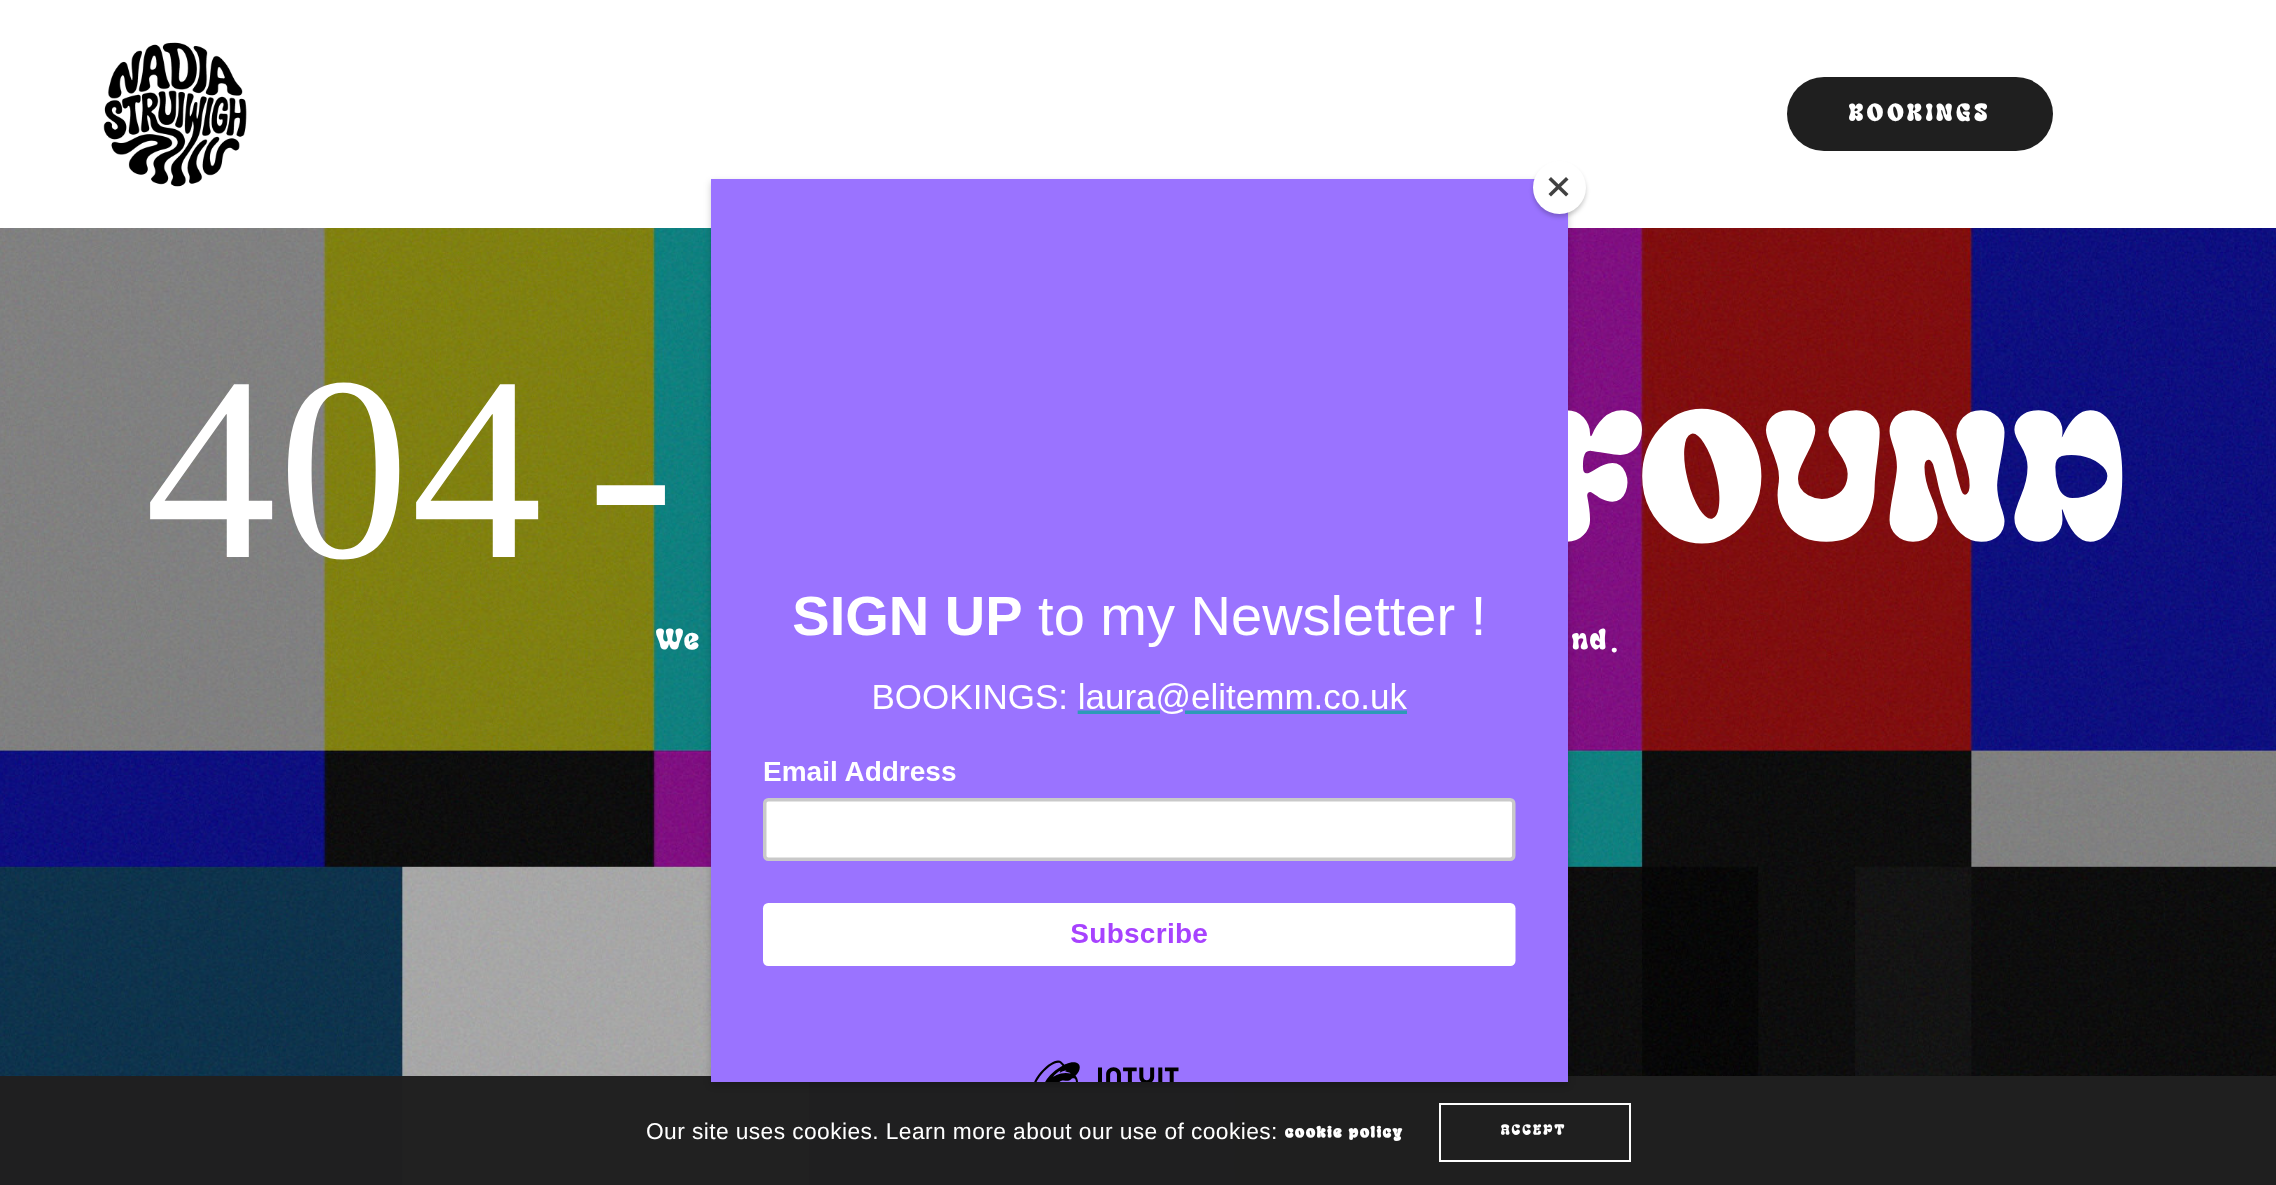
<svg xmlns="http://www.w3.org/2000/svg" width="2276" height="1185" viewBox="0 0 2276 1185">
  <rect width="100%" height="100%" fill="#fff"/>
  <image x="103" y="42" width="144" height="145" href="img/1.png"/>
  <rect x="1787" y="77" width="266" height="74" rx="37" fill="#1f1f1f"/>
  <image x="0" y="228" width="2276" height="957" href="img/2.png"/>
  <path d="M0 1076h2276v109H0z" fill="#1f1f1ffc"/>
  <path d="M711 182h857v903H711z" fill="#00000033" filter="blur(3.5px)"/>
  <path d="M1440 1104h190v57H1440z" fill="none" stroke="#fdfdfd" stroke-width="2"/>
  <text x="1849" y="123" font-family="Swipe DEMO" font-size="35" letter-spacing="3.5" fill="#fff">BOOKINGS</text>
  <g font-family="Liberation Serif" font-size="262.5" letter-spacing="1.75" fill="#fff">
    <text x="145" y="557">404</text>
    <text x="587" y="557">-</text>
  </g>
  <text x="1542" y="557" font-family="Swipe DEMO" font-size="262.5" letter-spacing="1.75" fill="#fff">FOUND</text>
  <g font-family="Swipe DEMO" font-size="42" letter-spacing="1.75" fill="#fff">
    <text x="656" y="652">We</text>
    <text x="1572" y="652">nd</text>
  </g>
  <text x="1609" y="652" font-family="Liberation Serif" font-size="42" letter-spacing="1.75" fill="#fff">.</text>
  <image x="711" y="179" width="857" height="903" href="img/3.png"/>
  <rect x="1533" y="165" width="53" height="52" rx="26" fill="#00000033" filter="blur(2px)"/>
  <circle cx="1559.5" cy="187.5" r="26.5" fill="#fff"/>
  <path d="M1566 177L1568.5 179.5L1551 196.5L1548.5 194Z" fill="#414141"/>
  <path d="M1548.5 179.5L1551 177L1568.5 194L1566 196.5Z" fill="#414141"/>
  <text x="646" y="1139" font-family="Liberation Sans" font-size="22.75" letter-spacing="0.42" fill="#fff">Our site uses cookies. Learn more about our use of cookies:</text>
  <text x="1285" y="1139" font-family="Swipe DEMO" font-size="22.75" font-weight="bold" letter-spacing="1.75" fill="#fff">cookie policy</text>
  <text x="1501" y="1136" font-family="Swipe DEMO" font-size="21" letter-spacing="2" fill="#fff">ACCEPT</text>
</svg>
